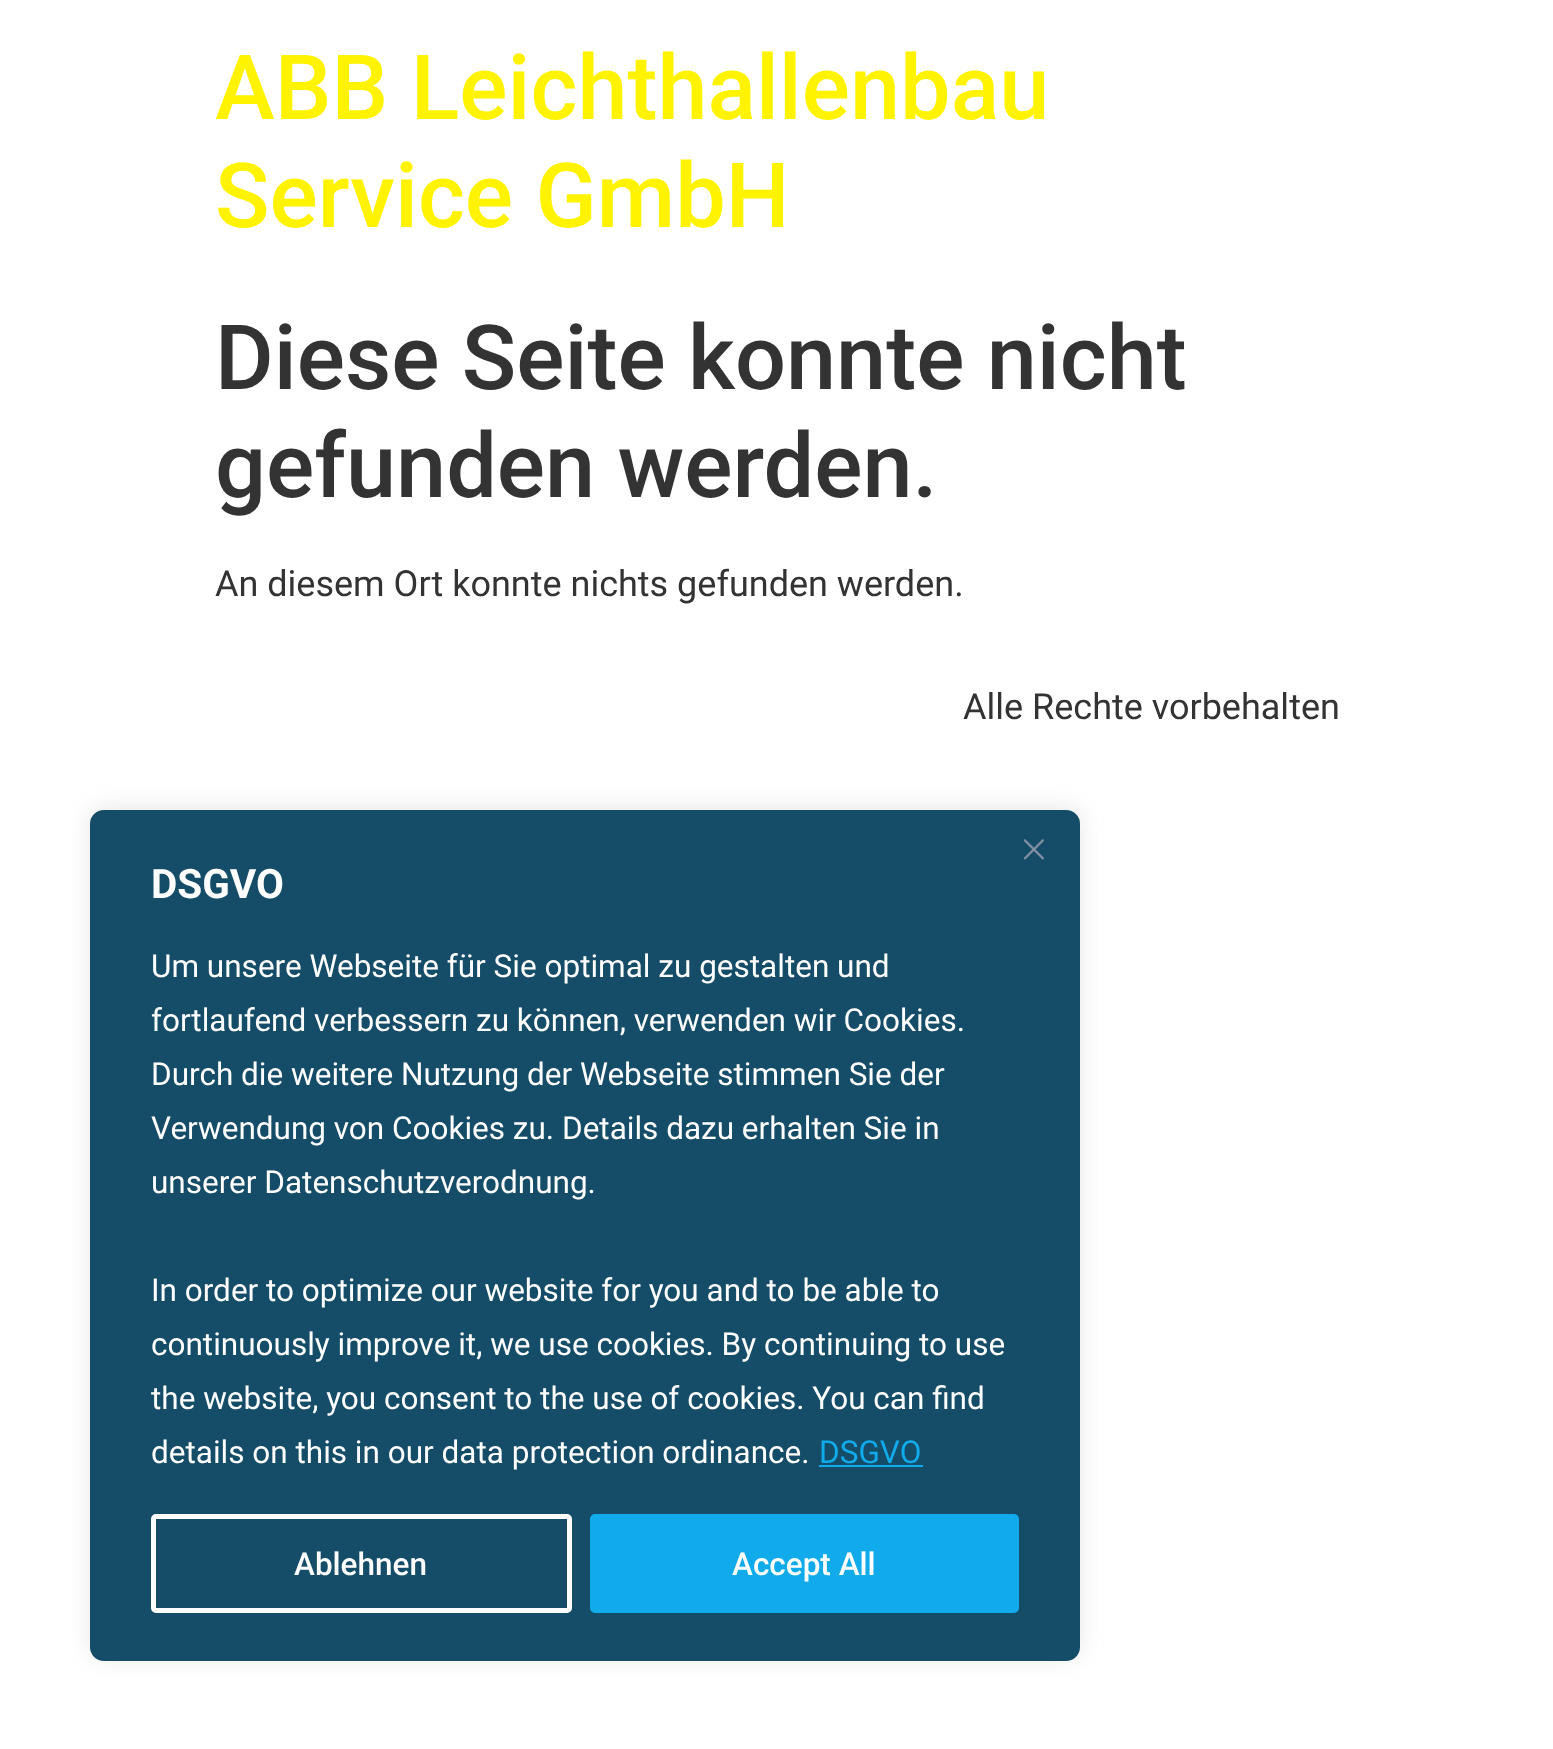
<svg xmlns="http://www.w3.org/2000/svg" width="1553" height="1749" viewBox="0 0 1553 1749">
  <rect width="100%" height="100%" fill="#fff"/>
  <rect x="90" y="808" width="990" height="850" rx="14" fill="#acabab4d" filter="blur(11px)"/>
  <rect x="91" y="811" width="988" height="849" rx="13" fill="#154c68" stroke="#154c68" stroke-width="2"/>
  <image x="1024" y="839" width="20" height="21" href="img/1.png"/>
  <path d="M819 1465h104v2H819z" fill="#11aaeb"/>
  <rect x="153.5" y="1516.5" width="416" height="94" rx="2.5" fill="none" stroke="#fff" stroke-width="5"/>
  <rect x="592.5" y="1516.5" width="424" height="94" rx="2.5" fill="#11aaeb" stroke="#11aaeb" stroke-width="5"/>
  <g font-family="Roboto" font-size="90" font-weight="500" fill="#fff300">
    <text x="215" y="119">ABB Leichthallenbau</text>
    <text x="215" y="227">Service GmbH</text>
  </g>
  <g font-family="Roboto" font-size="90" font-weight="500" fill="#333">
    <text x="215" y="389">Diese Seite konnte nicht</text>
    <text x="215" y="497">gefunden werden.</text>
  </g>
  <g font-family="Roboto" font-size="36" fill="#333">
    <text x="215" y="596">An diesem Ort konnte nichts gefunden werden.</text>
    <text x="963" y="719">Alle Rechte vorbehalten</text>
  </g>
  <text x="151" y="898" font-family="Roboto" font-size="40.5" font-weight="bold" fill="#fff">DSGVO</text>
  <g font-family="Roboto" font-size="31.5" fill="#fff">
    <text x="151" y="977">Um unsere Webseite für Sie optimal zu gestalten und</text>
    <text x="151" y="1031">fortlaufend verbessern zu können, verwenden wir Cookies.</text>
    <text x="151" y="1085">Durch die weitere Nutzung der Webseite stimmen Sie der</text>
    <text x="151" y="1139">Verwendung von Cookies zu. Details dazu erhalten Sie in</text>
    <text x="151" y="1193">unserer Datenschutzverodnung.</text>
    <text x="151" y="1301">In order to optimize our website for you and to be able to</text>
    <text x="151" y="1355">continuously improve it, we use cookies. By continuing to use</text>
    <text x="151" y="1409">the website, you consent to the use of cookies. You can find</text>
    <text x="151" y="1463">details on this in our data protection ordinance.</text>
  </g>
  <text x="819" y="1463" font-family="Roboto" font-size="31.5" fill="#11aaeb">DSGVO</text>
  <g font-family="Roboto" font-size="31.5" font-weight="500" fill="#fff">
    <text x="294" y="1575">Ablehnen</text>
    <text x="732" y="1575">Accept All</text>
  </g>
</svg>
